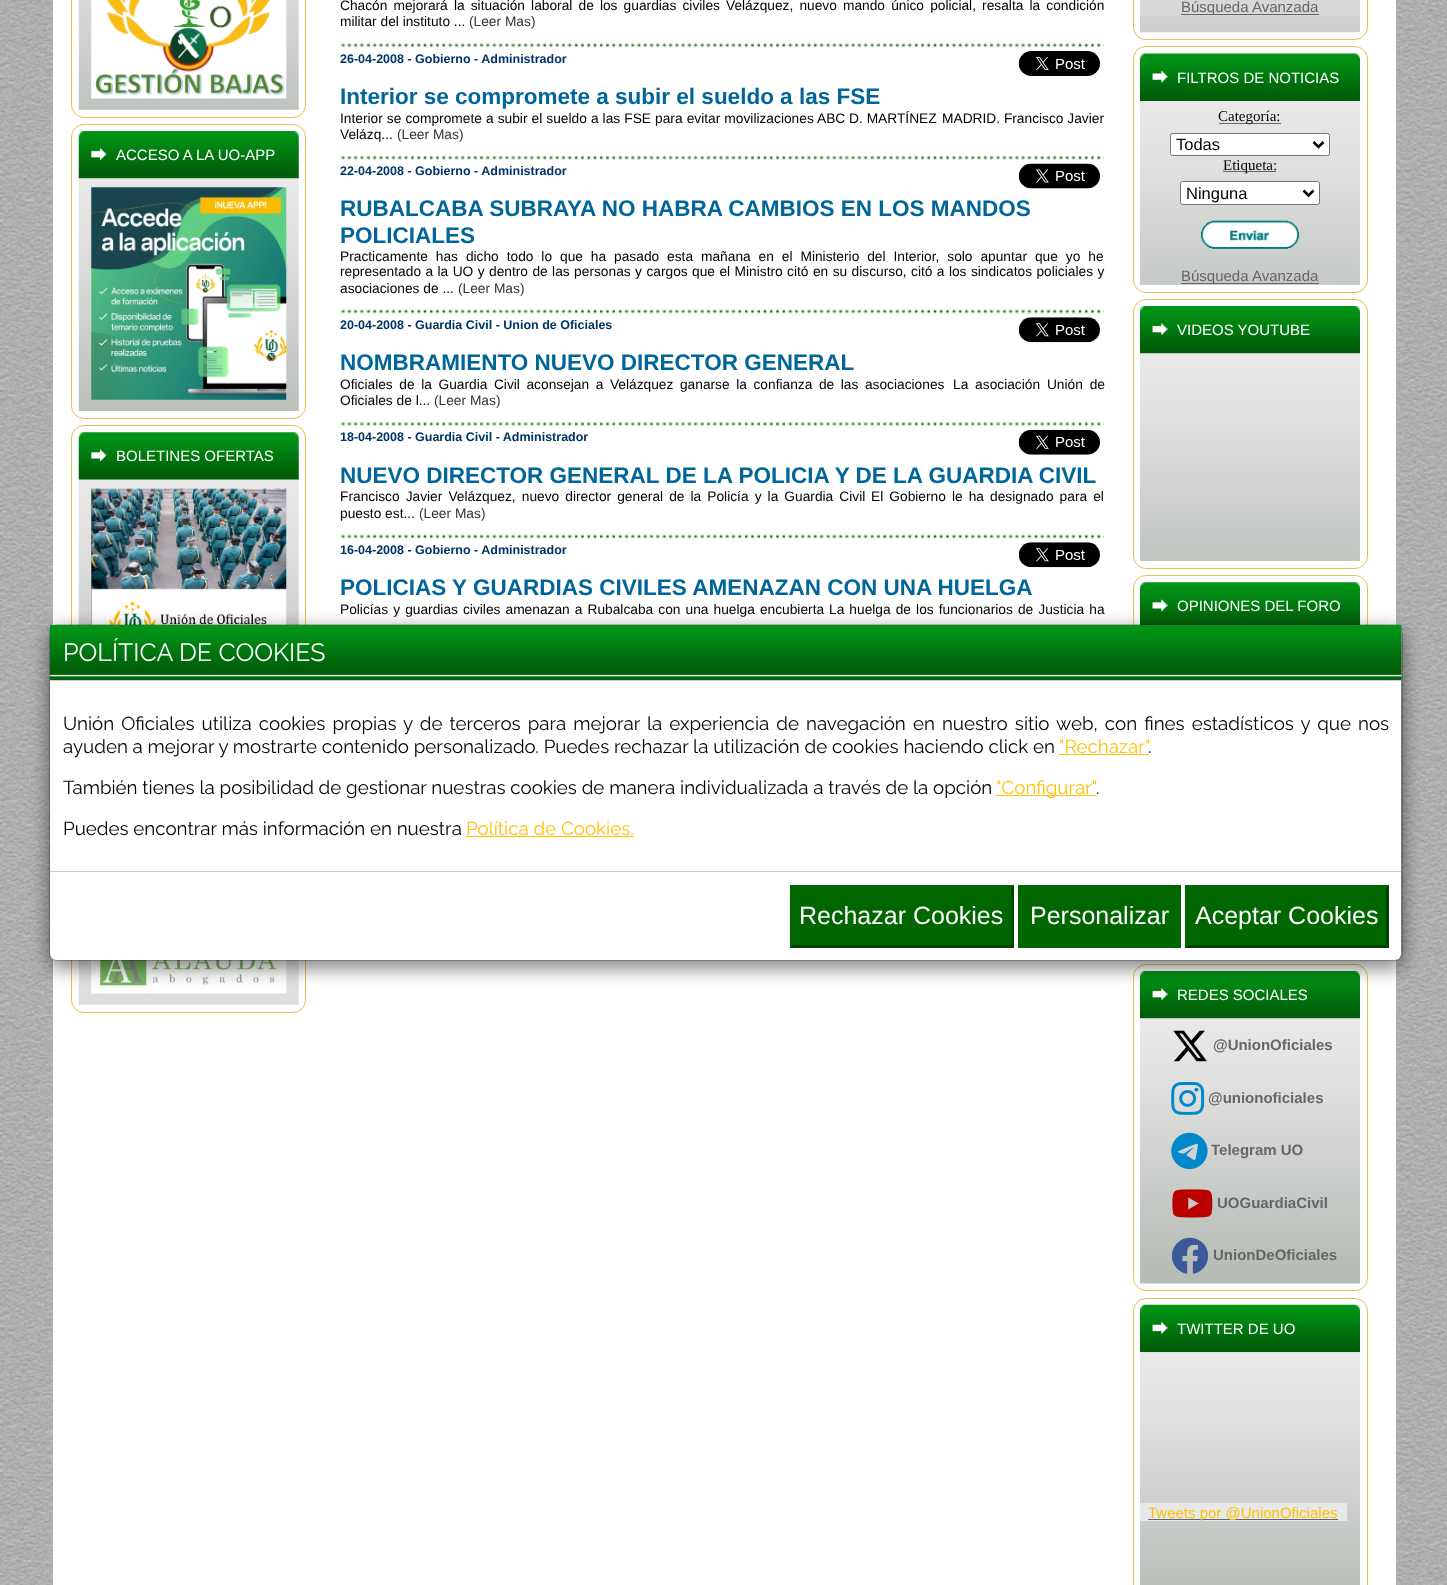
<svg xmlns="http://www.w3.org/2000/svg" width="1447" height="1585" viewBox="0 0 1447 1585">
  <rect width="100%" height="100%" fill="#fff"/>
  <image x="0" y="0" width="1447" height="1585" href="img/1.png"/>
  <path d="M53 0h1343v1585H53z" fill="#fff"/>
  <rect x="71.5" y="-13.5" width="234" height="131" rx="12.5" fill="none" stroke="#e4c156"/>
  <image x="78" y="0" width="221" height="110" href="img/2.png"/>
  <image x="91" y="0" width="196" height="99" href="img/3.png"/>
  <rect x="71.5" y="124.5" width="234" height="294" rx="12.5" fill="none" stroke="#e4c156"/>
  <image x="78" y="131" width="221" height="48" href="img/4.png"/>
  <image x="78" y="178" width="221" height="233" href="img/5.png"/>
  <image x="91" y="187" width="196" height="213" href="img/6.png"/>
  <rect x="71.5" y="425.5" width="234" height="248" rx="12.5" fill="none" stroke="#e4c156"/>
  <image x="78" y="432" width="221" height="48" href="img/7.png"/>
  <image x="78" y="479" width="221" height="146" href="img/8.png"/>
  <image x="91" y="488" width="196" height="137" href="img/9.png"/>
  <rect x="71.5" y="869.5" width="234" height="143" rx="12.5" fill="none" stroke="#e4c156"/>
  <image x="78" y="960" width="221" height="45" href="img/10.png"/>
  <image x="91" y="960" width="196" height="34" href="img/11.png"/>
  <image x="341" y="43" width="763" height="5" href="img/12.png"/>
  <image x="1018" y="51" width="82" height="25" href="img/13.png"/>
  <image x="341" y="155" width="763" height="5" href="img/14.png"/>
  <image x="1018" y="163" width="82" height="26" href="img/15.png"/>
  <image x="341" y="309" width="763" height="5" href="img/16.png"/>
  <image x="1018" y="317" width="82" height="26" href="img/17.png"/>
  <image x="341" y="422" width="763" height="5" href="img/18.png"/>
  <image x="1018" y="429" width="82" height="26" href="img/19.png"/>
  <image x="341" y="534" width="763" height="5" href="img/20.png"/>
  <image x="1018" y="542" width="82" height="26" href="img/17.png"/>
  <rect x="1133.5" y="-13.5" width="234" height="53" rx="12.5" fill="none" stroke="#e4c156"/>
  <image x="1140" y="16" width="220" height="17" href="img/21.png"/>
  <path d="M1140 0h220v16H1140z" fill="#d6d8d6"/>
  <path d="M1181 14h138v1H1181z" fill="#666"/>
  <rect x="1133.5" y="46.5" width="234" height="246" rx="12.5" fill="none" stroke="#e4c156"/>
  <image x="1140" y="53" width="220" height="48" href="img/22.png"/>
  <image x="1140" y="101" width="220" height="183" href="img/23.png"/>
  <path d="M1140 284h220v1H1140z" fill="#cacdca"/>
  <path d="M1219 123h62v1H1219z" fill="#666"/>
  <rect x="1170.5" y="133.5" width="159" height="22" rx="2" fill="#fff" stroke="#767676"/>
  <path d="M1313.5 142L1318.5 147L1323.5 142" fill="none" stroke="#000" stroke-width="2.5"/>
  <path d="M1223 171h53v1H1223z" fill="#666"/>
  <rect x="1180.5" y="181.5" width="139" height="23" rx="2" fill="#fff" stroke="#767676"/>
  <path d="M1303.5 190.5L1308.5 195.5L1313.5 190.5" fill="none" stroke="#000" stroke-width="2.5"/>
  <image x="1201" y="220" width="99" height="29" href="img/24.png"/>
  <path d="M1181 283h138v1H1181z" fill="#666"/>
  <rect x="1133.5" y="299.5" width="234" height="269" rx="12.5" fill="none" stroke="#e4c156"/>
  <image x="1140" y="306" width="220" height="48" href="img/25.png"/>
  <image x="1140" y="353" width="220" height="208" href="img/26.png"/>
  <rect x="1133.5" y="575.5" width="234" height="382" rx="12.5" fill="none" stroke="#e4c156"/>
  <image x="1140" y="582" width="220" height="43" href="img/27.png"/>
  <rect x="1133.5" y="964.5" width="234" height="326" rx="12.5" fill="none" stroke="#e4c156"/>
  <image x="1140" y="971" width="220" height="48" href="img/25.png"/>
  <image x="1140" y="1018" width="220" height="266" href="img/28.png"/>
  <image x="1173" y="1030" width="34" height="32" href="img/29.png"/>
  <image x="1171" y="1082" width="34" height="33" href="img/30.png"/>
  <image x="1171" y="1132" width="37" height="38" href="img/31.png"/>
  <image x="1172" y="1189" width="41" height="29" href="img/32.png"/>
  <image x="1171" y="1237" width="38" height="37" href="img/33.png"/>
  <rect x="1133.5" y="1298.5" width="234" height="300" rx="12.5" fill="none" stroke="#e4c156"/>
  <image x="1140" y="1304" width="220" height="49" href="img/34.png"/>
  <image x="1140" y="1352" width="220" height="233" href="img/35.png"/>
  <path d="M1140 1503h207v18H1140z" fill="#e7e8e7"/>
  <path d="M1148 1519h190v1H1148z" fill="#666"/>
  <rect x="49" y="630" width="1354" height="338" rx="8" fill="#00000080" filter="blur(9.5px)"/>
  <rect x="50" y="625" width="1351" height="335" rx="6" fill="#fff"/>
  <rect x="49.5" y="624.5" width="1353" height="336" rx="7.5" fill="none" stroke="#00000033"/>
  <image x="50" y="625" width="1352" height="55" href="img/36.png"/>
  <path d="M50 680h1351v1H50z" fill="#ccc"/>
  <path d="M50 871h1351v1H50z" fill="#ccc"/>
  <path d="M1059 754h90v1H1059z" fill="#ffc107"/>
  <path d="M996 795h100v1H996z" fill="#ffc107"/>
  <path d="M466 836h168v1H466z" fill="#ffc107"/>
  <path d="M790 885h224v63H790z" fill="#060"/>
  <path d="M1014 885V948L1011 945V888Z" fill="#040"/>
  <path d="M1014 948H790L792 945H1011Z" fill="#040"/>
  <path d="M790 948V885L792 888V945Z" fill="#060"/>
  <path d="M1018 885h163v63H1018z" fill="#060"/>
  <path d="M1185 885h204v63H1185z" fill="#060"/>
  <path d="M1389 885V948L1386 945V888Z" fill="#040"/>
  <path d="M1389 948H1185L1188 945H1386Z" fill="#040"/>
  <path d="M1185 948V885L1188 888V945Z" fill="#060"/>
  <g font-family="Liberation Sans" font-size="15" fill="#fff">
    <text x="116" y="160">ACCESO A LA UO-APP</text>
    <text x="116" y="461">BOLETINES OFERTAS</text>
  </g>
  <g font-family="Liberation Sans" font-size="13.75" fill="#000">
    <text x="340" y="10" word-spacing="2.3">Chacón mejorará la situación laboral de los guardias civiles</text>
    <text x="726" y="10" word-spacing="2.3">Velázquez, nuevo mando único policial, resalta la condición</text>
    <text x="340" y="26">militar del instituto ...</text>
  </g>
  <text x="469" y="26" font-family="Liberation Sans" font-size="13.75" fill="#333">(Leer Mas)</text>
  <text x="340" y="63" font-family="Liberation Sans" font-size="12.5" font-weight="bold" fill="#036">26-04-2008 - Gobierno - Administrador</text>
  <text x="340" y="104" font-family="Liberation Sans" font-size="22.5" font-weight="bold" fill="#069">Interior se compromete a subir el sueldo a las FSE</text>
  <g font-family="Liberation Sans" font-size="13.75" fill="#000">
    <text x="340" y="123" word-spacing="0.25">Interior se compromete a subir el sueldo a las FSE para evitar movilizaciones</text>
    <text x="817" y="123">ABC D. MARTÍNEZ</text>
    <text x="942" y="123">MADRID. Francisco Javier</text>
    <text x="340" y="139">Velázq...</text>
  </g>
  <text x="397" y="139" font-family="Liberation Sans" font-size="13.75" fill="#333">(Leer Mas)</text>
  <text x="340" y="175" font-family="Liberation Sans" font-size="12.5" font-weight="bold" fill="#036">22-04-2008 - Gobierno - Administrador</text>
  <g font-family="Liberation Sans" font-size="22.5" font-weight="bold" fill="#069">
    <text x="340" y="216">RUBALCABA SUBRAYA NO HABRA CAMBIOS EN LOS MANDOS</text>
    <text x="340" y="243">POLICIALES</text>
  </g>
  <g font-family="Liberation Sans" font-size="13.75" fill="#000">
    <text x="340" y="261" word-spacing="4.1">Practicamente has dicho todo lo que ha pasado esta mañana en el Ministerio del Interior, solo apuntar que yo he</text>
    <text x="340" y="276" word-spacing="0.6">representado a la UO y dentro de las personas y cargos que el Ministro citó en su discurso, citó a los sindicatos policiales y</text>
    <text x="340" y="293">asociaciones de ...</text>
  </g>
  <text x="458" y="293" font-family="Liberation Sans" font-size="13.75" fill="#333">(Leer Mas)</text>
  <text x="340" y="329" font-family="Liberation Sans" font-size="12.5" font-weight="bold" fill="#036">20-04-2008 - Guardia Civil - Union de Oficiales</text>
  <text x="340" y="370" font-family="Liberation Sans" font-size="22.5" font-weight="bold" fill="#069">NOMBRAMIENTO NUEVO DIRECTOR GENERAL</text>
  <g font-family="Liberation Sans" font-size="13.75" fill="#000">
    <text x="340" y="389" word-spacing="2.75">Oficiales de la Guardia Civil aconsejan a Velázquez ganarse la confianza de las asociaciones</text>
    <text x="953" y="389" word-spacing="3">La asociación Unión de</text>
    <text x="340" y="405">Oficiales de l...</text>
  </g>
  <text x="434" y="405" font-family="Liberation Sans" font-size="13.75" fill="#333">(Leer Mas)</text>
  <text x="340" y="441" font-family="Liberation Sans" font-size="12.5" font-weight="bold" fill="#036">18-04-2008 - Guardia Civil - Administrador</text>
  <text x="340" y="483" font-family="Liberation Sans" font-size="22.5" font-weight="bold" fill="#069">NUEVO DIRECTOR GENERAL DE LA POLICIA Y DE LA GUARDIA CIVIL</text>
  <g font-family="Liberation Sans" font-size="13.75" fill="#000">
    <text x="340" y="501" word-spacing="2.25">Francisco Javier Velázquez, nuevo director general de la Policía y la Guardia Civil</text>
    <text x="871" y="501" word-spacing="2.25">El Gobierno le ha designado para el</text>
    <text x="340" y="518">puesto est...</text>
  </g>
  <text x="419" y="518" font-family="Liberation Sans" font-size="13.75" fill="#333">(Leer Mas)</text>
  <text x="340" y="554" font-family="Liberation Sans" font-size="12.5" font-weight="bold" fill="#036">16-04-2008 - Gobierno - Administrador</text>
  <text x="340" y="595" font-family="Liberation Sans" font-size="22.5" font-weight="bold" fill="#069">POLICIAS Y GUARDIAS CIVILES AMENAZAN CON UNA HUELGA</text>
  <g font-family="Liberation Sans" font-size="13.75" fill="#000">
    <text x="340" y="614" word-spacing="1.25">Policías y guardias civiles amenazan a Rubalcaba con una huelga encubierta</text>
    <text x="829" y="614" word-spacing="1.25">La huelga de los funcionarios de Justicia ha</text>
  </g>
  <text x="1181" y="12" font-family="Liberation Sans" font-size="15" fill="#666">Búsqueda Avanzada</text>
  <text x="1177" y="83" font-family="Liberation Sans" font-size="15" fill="#fff">FILTROS DE NOTICIAS</text>
  <text x="1218" y="121" font-family="Liberation Serif" font-size="15" fill="#000">Categoría:</text>
  <text x="1176" y="150" font-family="Liberation Sans" font-size="16.5" fill="#000">Todas</text>
  <text x="1223" y="170" font-family="Liberation Serif" font-size="15" fill="#000">Etiqueta:</text>
  <text x="1186" y="199" font-family="Liberation Sans" font-size="16.5" fill="#000">Ninguna</text>
  <text x="1181" y="281" font-family="Liberation Sans" font-size="15" fill="#666">Búsqueda Avanzada</text>
  <g font-family="Liberation Sans" font-size="15" fill="#fff">
    <text x="1177" y="335">VIDEOS YOUTUBE</text>
    <text x="1177" y="611">OPINIONES DEL FORO</text>
    <text x="1177" y="1000">REDES SOCIALES</text>
  </g>
  <g font-family="Liberation Sans" font-size="15" font-weight="bold" fill="#666">
    <text x="1213" y="1050">@UnionOficiales</text>
    <text x="1208" y="1103">@unionoficiales</text>
    <text x="1211" y="1155">Telegram UO</text>
    <text x="1217" y="1208">UOGuardiaCivil</text>
    <text x="1213" y="1260">UnionDeOficiales</text>
  </g>
  <text x="1177" y="1334" font-family="Liberation Sans" font-size="15" fill="#fff">TWITTER DE UO</text>
  <text x="1148" y="1518" font-family="Liberation Sans" font-size="15" fill="#ffc107">Tweets por @UnionOficiales</text>
  <text x="63" y="661" font-family="Raleway" font-size="25" fill="#fff">POLÍTICA DE COOKIES</text>
  <g font-family="Raleway" font-size="18.75" fill="#000">
    <text x="63" y="730" word-spacing="2.3">Unión Oficiales utiliza cookies propias y de terceros para mejorar la experiencia de navegación en nuestro sitio web, con fines estadísticos y que nos</text>
    <text x="63" y="753">ayuden a mejorar y mostrarte contenido personalizado. Puedes rechazar la utilización de cookies haciendo click en</text>
  </g>
  <text x="1059" y="753" font-family="Raleway" font-size="18.75" fill="#ffc107">"Rechazar"</text>
  <g font-family="Raleway" font-size="18.75" fill="#000">
    <text x="1148" y="753">.</text>
    <text x="63" y="794">También tienes la posibilidad de gestionar nuestras cookies de manera individualizada a través de la opción</text>
  </g>
  <text x="996" y="794" font-family="Raleway" font-size="18.75" fill="#ffc107">"Configurar"</text>
  <g font-family="Raleway" font-size="18.75" fill="#000">
    <text x="1096" y="794">.</text>
    <text x="63" y="835">Puedes encontrar más información en nuestra</text>
  </g>
  <text x="466" y="835" font-family="Raleway" font-size="18.75" fill="#ffc107">Política de Cookies.</text>
  <g font-family="Liberation Sans" font-size="25" fill="#fff">
    <text x="799" y="924">Rechazar Cookies</text>
    <text x="1030" y="924">Personalizar</text>
    <text x="1195" y="924">Aceptar Cookies</text>
  </g>
</svg>
